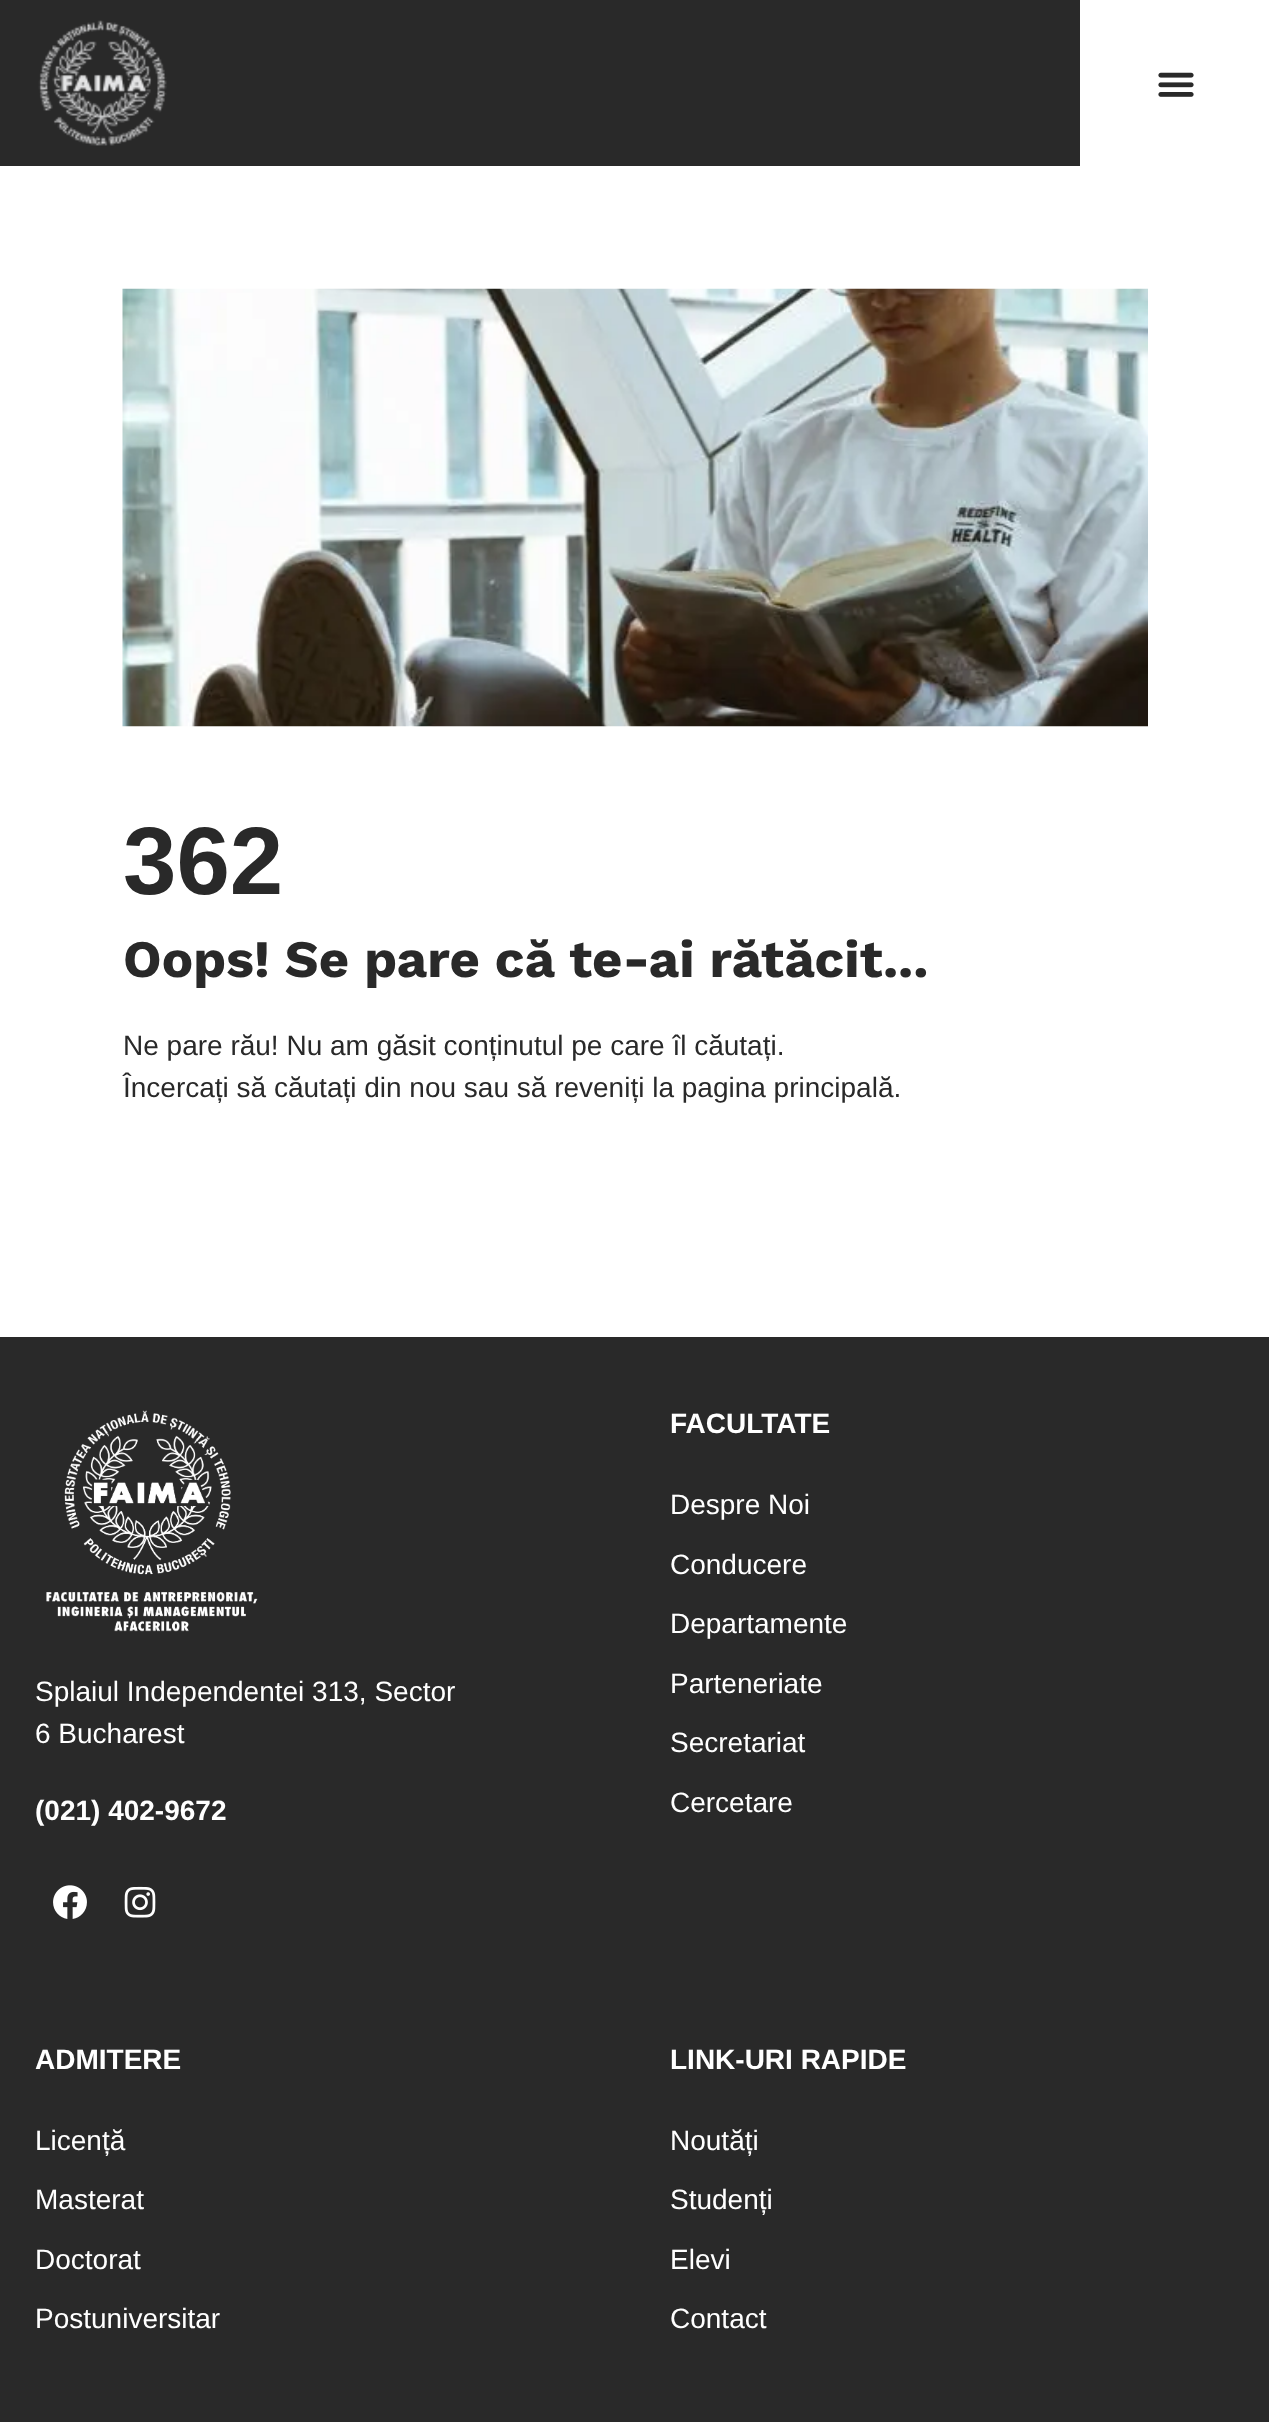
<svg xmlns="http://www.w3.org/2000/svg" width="1269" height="2422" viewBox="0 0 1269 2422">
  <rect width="100%" height="100%" fill="#fff"/>
  <path d="M0 0h1080v166H0z" fill="#292929"/>
  <image x="38" y="20" width="129" height="126" href="img/1.png"/>
  <image x="1158" y="72" width="36" height="25" href="img/2.png"/>
  <image x="122" y="288" width="1026" height="439" href="img/3.png"/>
  <path d="M0 1337h1269v1085H0z" fill="#292929"/>
  <image x="46" y="1410" width="212" height="222" href="img/4.png"/>
  <image x="53" y="1885" width="34" height="34" href="img/5.png"/>
  <image x="124" y="1886" width="32" height="32" href="img/6.png"/>
  <text x="123" y="894" font-family="Liberation Sans" font-size="96" font-weight="bold" fill="#292929">362</text>
  <text x="123" y="977" font-family="Work Sans" font-size="52.5" font-weight="bold" fill="#292929">Oops! Se pare că te-ai rătăcit...</text>
  <g font-family="Liberation Sans" font-size="28" fill="#292929">
    <text x="123" y="1055">Ne pare rău! Nu am găsit conținutul pe care îl căutați.</text>
    <text x="123" y="1097">Încercați să căutați din nou sau să reveniți la pagina principală.</text>
  </g>
  <g font-family="Liberation Sans" font-size="28" fill="#fff">
    <text x="35" y="1701">Splaiul Independentei 313, Sector</text>
    <text x="35" y="1743">6 Bucharest</text>
  </g>
  <g font-family="Liberation Sans" font-size="28" font-weight="bold" fill="#fff">
    <text x="35" y="1820">(021) 402-9672</text>
    <text x="670" y="1433">FACULTATE</text>
  </g>
  <g font-family="Liberation Sans" font-size="28" fill="#fff">
    <text x="670" y="1514">Despre Noi</text>
    <text x="670" y="1574">Conducere</text>
    <text x="670" y="1633">Departamente</text>
    <text x="670" y="1693">Parteneriate</text>
    <text x="670" y="1752">Secretariat</text>
    <text x="670" y="1812">Cercetare</text>
  </g>
  <text x="35" y="2069" font-family="Liberation Sans" font-size="28" font-weight="bold" fill="#fff">ADMITERE</text>
  <g font-family="Liberation Sans" font-size="28" fill="#fff">
    <text x="35" y="2150">Licență</text>
    <text x="35" y="2209">Masterat</text>
    <text x="35" y="2269">Doctorat</text>
    <text x="35" y="2328">Postuniversitar</text>
  </g>
  <text x="670" y="2069" font-family="Liberation Sans" font-size="28" font-weight="bold" fill="#fff">LINK-URI RAPIDE</text>
  <g font-family="Liberation Sans" font-size="28" fill="#fff">
    <text x="670" y="2150">Noutăți</text>
    <text x="670" y="2209">Studenți</text>
    <text x="670" y="2269">Elevi</text>
    <text x="670" y="2328">Contact</text>
  </g>
</svg>
